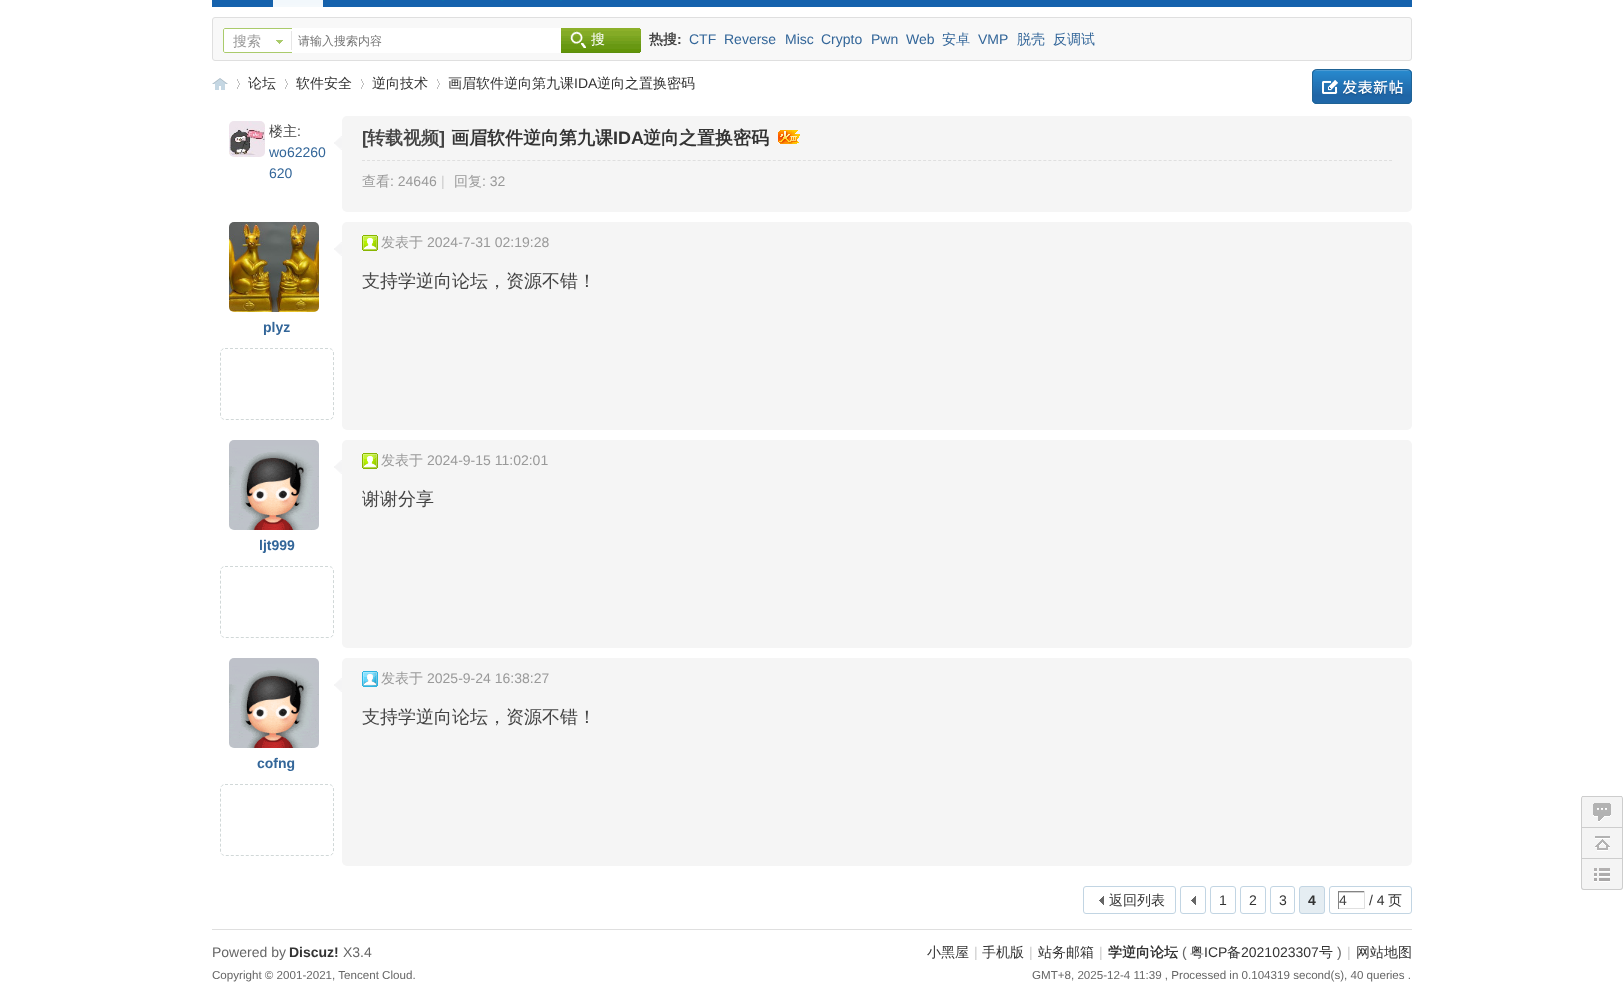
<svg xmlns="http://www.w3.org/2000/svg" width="1623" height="990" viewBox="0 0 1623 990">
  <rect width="100%" height="100%" fill="#fff"/>
  <path d="M212 0h1200v7H212z" fill="#1562ad"/>
  <image x="320" y="0" width="7" height="7" href="img/1.png"/>
  <image x="269" y="0" width="51" height="7" href="img/2.png"/>
  <image x="383" y="0" width="2" height="1" href="img/3.png"/>
  <path d="M442 0h2v1H442z" fill="#0e6eab"/>
  <path d="M501 0h2v1H501z" fill="#0e6eab"/>
  <path d="M560 0h2v1H560z" fill="#0e6eab"/>
  <path d="M633 0h2v1H633z" fill="#0e6eab"/>
  <rect x="212.5" y="17.5" width="1199" height="43" rx="2.5" fill="#f8f8f8" stroke="#dfdfdf"/>
  <image x="223" y="28" width="69" height="25" href="img/4.png"/>
  <image x="276" y="40" width="7" height="4" href="img/5.png"/>
  <path d="M292 28h269v25H292z" fill="#fff"/>
  <image x="561" y="28" width="80" height="25" href="img/6.png"/>
  <image x="212" y="78" width="16" height="12" href="img/7.png"/>
  <image x="237" y="79" width="3" height="10" href="img/8.png"/>
  <image x="285" y="79" width="3" height="10" href="img/8.png"/>
  <image x="361" y="79" width="3" height="10" href="img/8.png"/>
  <image x="437" y="79" width="3" height="10" href="img/8.png"/>
  <image x="1312" y="69" width="100" height="35" href="img/9.png"/>
  <image x="334" y="136" width="8" height="14" href="img/10.png"/>
  <image x="229" y="121" width="36" height="36" href="img/11.png"/>
  <rect x="342" y="116" width="1070" height="96" rx="5" fill="#f5f5f5"/>
  <path d="M362 160.5H1392" fill="none" stroke="#dfdfdf" stroke-dasharray="3 2.01"/>
  <image x="778" y="130" width="22" height="14" href="img/12.png"/>
  <rect x="342" y="222" width="1070" height="208" rx="5" fill="#f5f5f5"/>
  <image x="362" y="235" width="16" height="16" href="img/13.png"/>
  <image x="334" y="242" width="8" height="14" href="img/10.png"/>
  <image x="229" y="222" width="90" height="90" href="img/14.png"/>
  <path d="M225 348.5H329C331.5 348.5 333.5 350.5 333.5 353V415C333.5 417.5 331.5 419.5 329 419.5H225C222.5 419.5 220.5 417.5 220.5 415V353C220.5 350.5 222.5 348.5 225 348.5Z" fill="none" stroke="#d1d8d8" stroke-dasharray="3 2"/>
  <rect x="342" y="440" width="1070" height="208" rx="5" fill="#f5f5f5"/>
  <image x="362" y="453" width="16" height="16" href="img/13.png"/>
  <image x="334" y="460" width="8" height="14" href="img/10.png"/>
  <image x="229" y="440" width="90" height="90" href="img/15.png"/>
  <path d="M225 566.5H329C331.5 566.5 333.5 568.5 333.5 571V633C333.5 635.5 331.5 637.5 329 637.5H225C222.5 637.5 220.5 635.5 220.5 633V571C220.5 568.5 222.5 566.5 225 566.5Z" fill="none" stroke="#d1d8d8" stroke-dasharray="3 2"/>
  <rect x="342" y="658" width="1070" height="208" rx="5" fill="#f5f5f5"/>
  <image x="362" y="671" width="16" height="16" href="img/16.png"/>
  <image x="334" y="678" width="8" height="14" href="img/10.png"/>
  <image x="229" y="658" width="90" height="90" href="img/15.png"/>
  <path d="M225 784.5H329C331.5 784.5 333.5 786.5 333.5 789V851C333.5 853.5 331.5 855.5 329 855.5H225C222.5 855.5 220.5 853.5 220.5 851V789C220.5 786.5 222.5 784.5 225 784.5Z" fill="none" stroke="#d1d8d8" stroke-dasharray="3 2"/>
  <image x="1099" y="896" width="5" height="9" href="img/17.png"/>
  <rect x="1083.5" y="886.5" width="92" height="27" rx="2.5" fill="none" stroke="#c2d5e3"/>
  <image x="1191" y="896" width="5" height="9" href="img/17.png"/>
  <rect x="1180.5" y="886.5" width="25" height="27" rx="2.5" fill="none" stroke="#c2d5e3"/>
  <rect x="1210.5" y="886.5" width="25" height="27" rx="2.5" fill="none" stroke="#c2d5e3"/>
  <rect x="1240.5" y="886.5" width="25" height="27" rx="2.5" fill="none" stroke="#c2d5e3"/>
  <rect x="1270.5" y="886.5" width="24" height="27" rx="2.5" fill="none" stroke="#c2d5e3"/>
  <rect x="1299.5" y="886.5" width="25" height="27" rx="2.5" fill="#e5edf2" stroke="#c2d5e3"/>
  <rect x="1329.5" y="886.5" width="82" height="27" rx="2.5" fill="none" stroke="#c2d5e3"/>
  <path d="M1338 892h27v1H1338z" fill="#d4d4d4"/>
  <path d="M1338 891h27v1H1338z" fill="#848484"/>
  <path d="M1364 891h1v18H1364z" fill="#e0e0e0"/>
  <path d="M1338 908h27v1H1338z" fill="#e0e0e0"/>
  <path d="M1338 891h1v18H1338z" fill="#848484"/>
  <rect x="1581" y="796" width="42" height="94" rx="3" fill="#f4f4f4"/>
  <path d="M1584 796H1620C1622 796 1623 797 1623 799V887C1623 889 1622 890 1620 890H1584C1582 890 1581 889 1581 887V799C1581 797 1582 796 1584 796ZM1584 796H1620C1621 796 1622 797 1622 799V887C1622 888 1621 889 1620 889H1584C1583 889 1582 888 1582 887V799C1582 797 1583 796 1584 796Z" fill="#cdcdcd" fill-rule="evenodd"/>
  <image x="1593" y="803" width="18" height="19" href="img/18.png"/>
  <path d="M1582 796h40v1H1582z" fill="#cdcdcd"/>
  <image x="1595" y="836" width="15" height="15" href="img/19.png"/>
  <path d="M1582 827h40v1H1582z" fill="#cdcdcd"/>
  <image x="1594" y="868" width="16" height="14" href="img/20.png"/>
  <path d="M1582 858h40v1H1582z" fill="#cdcdcd"/>
  <path d="M212 929h1200v1H212z" fill="#dfdfdf"/>
  <text x="233" y="46" font-family="WenQuanYi Zen Hei" font-size="14" font-weight="500" fill="#999">搜索</text>
  <text x="298" y="45" font-family="WenQuanYi Zen Hei" font-size="12" font-weight="500" fill="#757575">请输入搜索内容</text>
  <text x="591" y="44" font-family="WenQuanYi Zen Hei" font-size="14" font-weight="500" letter-spacing="5" fill="#fff">搜</text>
  <text x="649" y="44" font-family="WenQuanYi Zen Hei" font-size="14" font-weight="bold" fill="#444">热搜</text>
  <text x="677" y="44" font-family="Liberation Sans" font-size="14" font-weight="bold" fill="#444">:</text>
  <g font-family="Liberation Sans" font-size="14" fill="#369">
    <text x="689" y="44">CTF</text>
    <text x="724" y="44">Reverse</text>
    <text x="785" y="44">Misc</text>
    <text x="821" y="44">Crypto</text>
    <text x="871" y="44">Pwn</text>
    <text x="906" y="44">Web</text>
  </g>
  <text x="942" y="44" font-family="WenQuanYi Zen Hei" font-size="14" font-weight="500" fill="#369">安卓</text>
  <text x="978" y="44" font-family="Liberation Sans" font-size="14" fill="#369">VMP</text>
  <g font-family="WenQuanYi Zen Hei" font-size="14" font-weight="500" fill="#369">
    <text x="1017" y="44">脱壳</text>
    <text x="1053" y="44">反调试</text>
  </g>
  <g font-family="WenQuanYi Zen Hei" font-size="14" font-weight="500" fill="#333">
    <text x="248" y="88">论坛</text>
    <text x="296" y="88">软件安全</text>
    <text x="372" y="88">逆向技术</text>
    <text x="448" y="88">画眉软件逆向第九课</text>
  </g>
  <text x="574" y="88" font-family="Liberation Sans" font-size="14" fill="#333">IDA</text>
  <text x="597" y="88" font-family="WenQuanYi Zen Hei" font-size="14" font-weight="500" fill="#333">逆向之置换密码</text>
  <text x="269" y="136" font-family="WenQuanYi Zen Hei" font-size="14" font-weight="500" fill="#444">楼主</text>
  <text x="297" y="136" font-family="Liberation Sans" font-size="14" fill="#444">:</text>
  <g font-family="Liberation Sans" font-size="14" fill="#369">
    <text x="269" y="157">wo62260</text>
    <text x="269" y="178">620</text>
  </g>
  <text x="362" y="144" font-family="Liberation Sans" font-size="18" font-weight="bold" fill="#444">[</text>
  <text x="367" y="144" font-family="WenQuanYi Zen Hei" font-size="18" font-weight="bold" fill="#444">转载视频</text>
  <text x="439" y="144" font-family="Liberation Sans" font-size="18" font-weight="bold" fill="#444">]</text>
  <text x="451" y="144" font-family="WenQuanYi Zen Hei" font-size="18" font-weight="bold" fill="#333">画眉软件逆向第九课</text>
  <text x="613" y="144" font-family="Liberation Sans" font-size="18" font-weight="bold" fill="#333">IDA</text>
  <text x="643" y="144" font-family="WenQuanYi Zen Hei" font-size="18" font-weight="bold" fill="#333">逆向之置换密码</text>
  <text x="362" y="186" font-family="WenQuanYi Zen Hei" font-size="14" font-weight="500" fill="#999">查看</text>
  <text x="390" y="186" font-family="Liberation Sans" font-size="14" fill="#999">: 24646</text>
  <text x="441" y="186" font-family="Liberation Sans" font-size="14" fill="#ccc">|</text>
  <text x="454" y="186" font-family="WenQuanYi Zen Hei" font-size="14" font-weight="500" fill="#999">回复</text>
  <text x="482" y="186" font-family="Liberation Sans" font-size="14" fill="#999">: 32</text>
  <text x="381" y="247" font-family="WenQuanYi Zen Hei" font-size="14" font-weight="500" fill="#999">发表于</text>
  <text x="427" y="247" font-family="Liberation Sans" font-size="14" fill="#999">2024-7-31 02:19:28</text>
  <text x="362" y="287" font-family="WenQuanYi Zen Hei" font-size="18" font-weight="500" fill="#444">支持学逆向论坛，资源不错！</text>
  <text x="263" y="332" font-family="Liberation Sans" font-size="14" font-weight="bold" fill="#369">plyz</text>
  <text x="381" y="465" font-family="WenQuanYi Zen Hei" font-size="14" font-weight="500" fill="#999">发表于</text>
  <text x="427" y="465" font-family="Liberation Sans" font-size="14" fill="#999">2024-9-15 11:02:01</text>
  <text x="362" y="505" font-family="WenQuanYi Zen Hei" font-size="18" font-weight="500" fill="#444">谢谢分享</text>
  <text x="259" y="550" font-family="Liberation Sans" font-size="14" font-weight="bold" fill="#369">ljt999</text>
  <text x="381" y="683" font-family="WenQuanYi Zen Hei" font-size="14" font-weight="500" fill="#999">发表于</text>
  <text x="427" y="683" font-family="Liberation Sans" font-size="14" fill="#999">2025-9-24 16:38:27</text>
  <text x="362" y="723" font-family="WenQuanYi Zen Hei" font-size="18" font-weight="500" fill="#444">支持学逆向论坛，资源不错！</text>
  <text x="257" y="768" font-family="Liberation Sans" font-size="14" font-weight="bold" fill="#369">cofng</text>
  <text x="1109" y="905" font-family="WenQuanYi Zen Hei" font-size="14" font-weight="500" fill="#333">返回列表</text>
  <g font-family="Liberation Sans" font-size="14" fill="#333">
    <text x="1219" y="905">1</text>
    <text x="1249" y="905">2</text>
    <text x="1279" y="905">3</text>
  </g>
  <text x="1308" y="905" font-family="Liberation Sans" font-size="14" font-weight="bold" fill="#333">4</text>
  <text x="1339" y="905" font-family="Liberation Sans" font-size="14" fill="#444">4</text>
  <text x="1369" y="905" font-family="Liberation Sans" font-size="14" fill="#333">/ 4</text>
  <text x="1388" y="905" font-family="WenQuanYi Zen Hei" font-size="14" font-weight="500" fill="#333">页</text>
  <text x="212" y="957" font-family="Liberation Sans" font-size="14" fill="#666">Powered by</text>
  <text x="289" y="957" font-family="Liberation Sans" font-size="14" font-weight="bold" fill="#333">Discuz!</text>
  <text x="343" y="957" font-family="Liberation Sans" font-size="14" fill="#666">X3.4</text>
  <text x="212" y="979" font-family="Liberation Sans" font-size="11.6" fill="#666">Copyright © 2001-2021, Tencent Cloud.</text>
  <text x="927" y="957" font-family="WenQuanYi Zen Hei" font-size="14" font-weight="500" fill="#333">小黑屋</text>
  <text x="974" y="957" font-family="Liberation Sans" font-size="14" fill="#ccc">|</text>
  <text x="982" y="957" font-family="WenQuanYi Zen Hei" font-size="14" font-weight="500" fill="#333">手机版</text>
  <text x="1029" y="957" font-family="Liberation Sans" font-size="14" fill="#ccc">|</text>
  <text x="1038" y="957" font-family="WenQuanYi Zen Hei" font-size="14" font-weight="500" fill="#333">站务邮箱</text>
  <text x="1099" y="957" font-family="Liberation Sans" font-size="14" fill="#ccc">|</text>
  <text x="1108" y="957" font-family="WenQuanYi Zen Hei" font-size="14" font-weight="bold" fill="#333">学逆向论坛</text>
  <text x="1182" y="957" font-family="Liberation Sans" font-size="14" fill="#666">(</text>
  <text x="1190" y="957" font-family="WenQuanYi Zen Hei" font-size="14" font-weight="500" fill="#333">粤</text>
  <text x="1204" y="957" font-family="Liberation Sans" font-size="14" fill="#333">ICP</text>
  <text x="1227" y="957" font-family="WenQuanYi Zen Hei" font-size="14" font-weight="500" fill="#333">备</text>
  <text x="1241" y="957" font-family="Liberation Sans" font-size="14" fill="#333">2021023307</text>
  <text x="1319" y="957" font-family="WenQuanYi Zen Hei" font-size="14" font-weight="500" fill="#333">号</text>
  <text x="1337" y="957" font-family="Liberation Sans" font-size="14" fill="#666">)</text>
  <text x="1347" y="957" font-family="Liberation Sans" font-size="14" fill="#ccc">|</text>
  <text x="1356" y="957" font-family="WenQuanYi Zen Hei" font-size="14" font-weight="500" fill="#333">网站地图</text>
  <text x="1032" y="979" font-family="Liberation Sans" font-size="11.6" fill="#666">GMT+8, 2025-12-4 11:39 , Processed in 0.104319 second(s), 40 queries .</text>
</svg>
